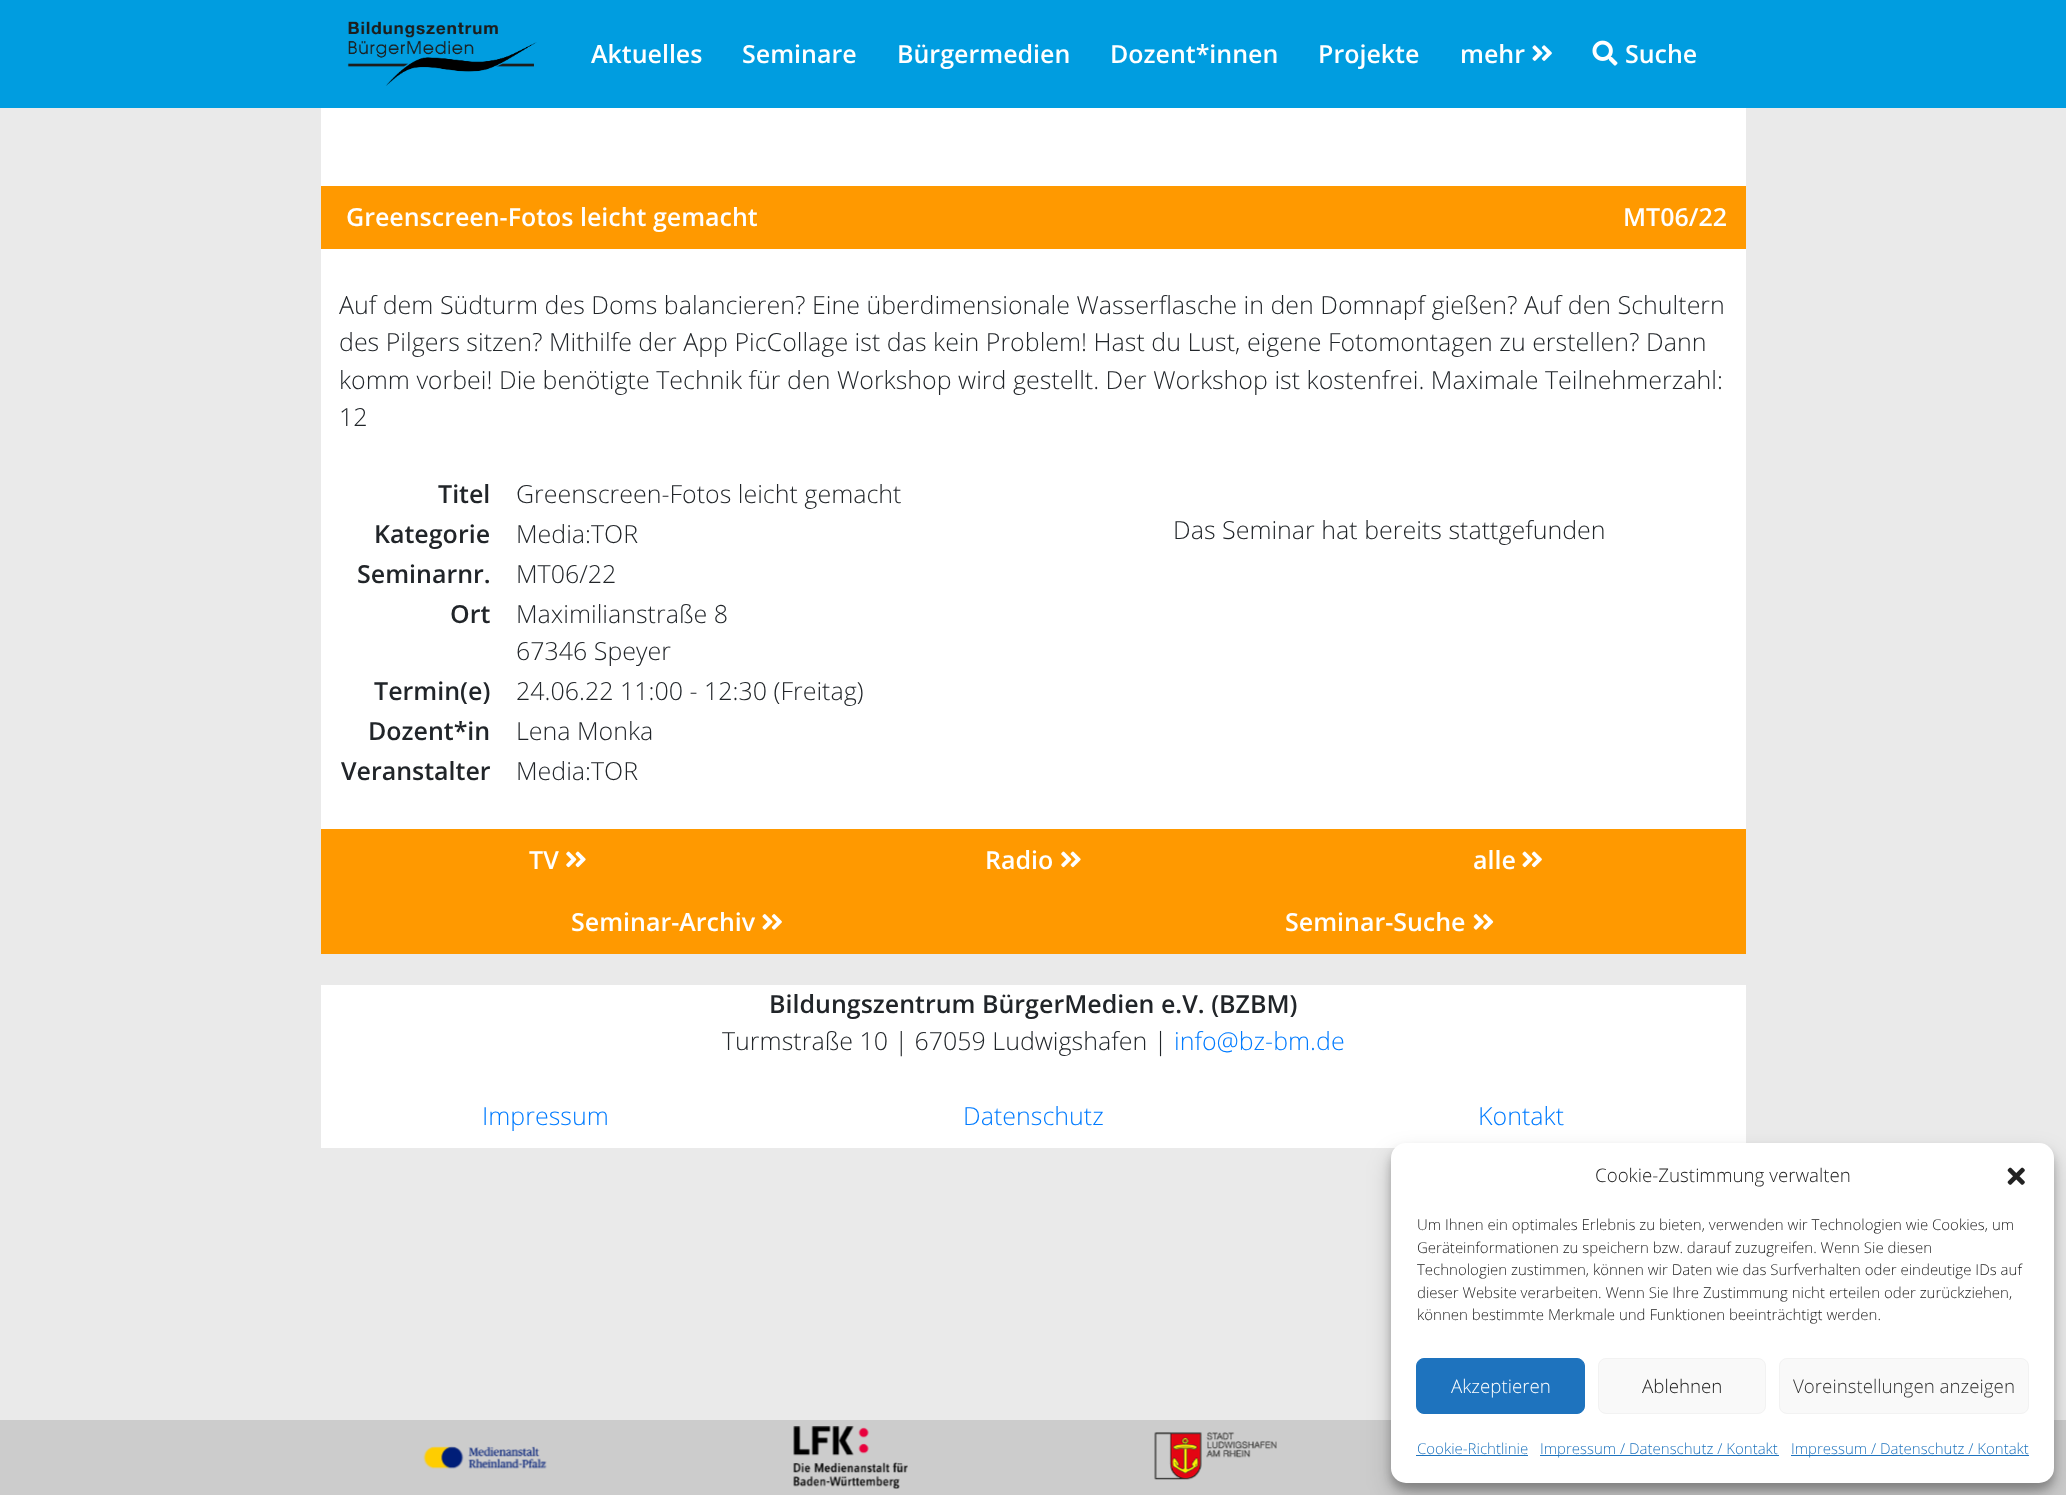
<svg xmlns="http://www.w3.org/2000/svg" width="2066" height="1495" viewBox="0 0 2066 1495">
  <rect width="100%" height="100%" fill="#eaeaea"/>
  <path d="M0 0h2066v108H0z" fill="#009de0"/>
  <image x="347" y="21" width="190" height="65" href="img/1.png"/>
  <image x="1532" y="45" width="20" height="16" href="img/2.png"/>
  <image x="1592" y="40" width="26" height="26" href="img/3.png"/>
  <path d="M321 108h1425v721H321z" fill="#fff"/>
  <path d="M321 186h1425v63H321z" fill="#f90"/>
  <path d="M321 829h1425v125H321z" fill="#f90"/>
  <image x="566" y="851" width="20" height="17" href="img/4.png"/>
  <image x="1061" y="851" width="20" height="17" href="img/4.png"/>
  <image x="1522" y="851" width="20" height="17" href="img/5.png"/>
  <image x="762" y="914" width="20" height="16" href="img/6.png"/>
  <image x="1473" y="914" width="21" height="16" href="img/7.png"/>
  <path d="M321 985h1425v163H321z" fill="#fff"/>
  <path d="M0 1420h2066v75H0z" fill="#ccc"/>
  <image x="423" y="1446" width="124" height="23" href="img/8.png"/>
  <image x="793" y="1426" width="115" height="63" href="img/9.png"/>
  <image x="1154" y="1432" width="123" height="48" href="img/10.png"/>
  <rect x="1391" y="1150" width="663" height="340" rx="15" fill="#0000003b" filter="blur(4px)"/>
  <rect x="1391" y="1155" width="663" height="340" rx="15" fill="#00000030" filter="blur(12.5px)"/>
  <rect x="1391" y="1143" width="663" height="340" rx="15" fill="#fff"/>
  <image x="2007" y="1167" width="18" height="18" href="img/11.png"/>
  <rect x="1416.5" y="1358.5" width="168" height="55" rx="7.5" fill="#1e73be" stroke="#1e73be"/>
  <rect x="1598.5" y="1358.5" width="167" height="55" rx="7.5" fill="#f9f9f9" stroke="#f2f2f2"/>
  <rect x="1779.5" y="1358.5" width="249" height="55" rx="7.5" fill="#f9f9f9" stroke="#f2f2f2"/>
  <path d="M1416 1455h112v1H1416z" fill="#1e73be"/>
  <path d="M1540 1455h239v1H1540z" fill="#1e73be"/>
  <path d="M1791 1455h238v1H1791z" fill="#1e73be"/>
  <g font-family="Open Sans" font-size="25" font-weight="600" fill="#fff">
    <text x="591" y="63">Aktuelles</text>
    <text x="742" y="63">Seminare</text>
    <text x="897" y="63">Bürgermedien</text>
    <text x="1110" y="63">Dozent*innen</text>
    <text x="1318" y="63">Projekte</text>
    <text x="1460" y="63">mehr</text>
    <text x="1625" y="63">Suche</text>
    <text x="346" y="226">Greenscreen-Fotos leicht gemacht</text>
    <text x="1623" y="226">MT06/22</text>
  </g>
  <g font-family="Open Sans" font-size="25" font-weight="300" fill="#212529">
    <text x="339" y="314">Auf dem Südturm des Doms balancieren? Eine überdimensionale Wasserflasche in den Domnapf gießen? Auf den Schultern</text>
    <text x="339" y="351">des Pilgers sitzen? Mithilfe der App PicCollage ist das kein Problem! Hast du Lust, eigene Fotomontagen zu erstellen? Dann</text>
    <text x="339" y="389">komm vorbei! Die benötigte Technik für den Workshop wird gestellt. Der Workshop ist kostenfrei. Maximale Teilnehmerzahl:</text>
    <text x="339" y="426">12</text>
  </g>
  <text x="438" y="503" font-family="Open Sans" font-size="25" font-weight="600" fill="#212529">Titel</text>
  <text x="516" y="503" font-family="Open Sans" font-size="25" font-weight="300" fill="#212529">Greenscreen-Fotos leicht gemacht</text>
  <text x="374" y="543" font-family="Open Sans" font-size="25" font-weight="600" fill="#212529">Kategorie</text>
  <text x="516" y="543" font-family="Open Sans" font-size="25" font-weight="300" fill="#212529">Media:TOR</text>
  <text x="357" y="583" font-family="Open Sans" font-size="25" font-weight="600" fill="#212529">Seminarnr.</text>
  <text x="516" y="583" font-family="Open Sans" font-size="25" font-weight="300" fill="#212529">MT06/22</text>
  <text x="450" y="623" font-family="Open Sans" font-size="25" font-weight="600" fill="#212529">Ort</text>
  <g font-family="Open Sans" font-size="25" font-weight="300" fill="#212529">
    <text x="516" y="623">Maximilianstraße 8</text>
    <text x="516" y="660">67346 Speyer</text>
  </g>
  <text x="374" y="700" font-family="Open Sans" font-size="25" font-weight="600" fill="#212529">Termin(e)</text>
  <text x="516" y="700" font-family="Open Sans" font-size="25" font-weight="300" fill="#212529">24.06.22 11:00 - 12:30 (Freitag)</text>
  <text x="368" y="740" font-family="Open Sans" font-size="25" font-weight="600" fill="#212529">Dozent*in</text>
  <text x="516" y="740" font-family="Open Sans" font-size="25" font-weight="300" fill="#212529">Lena Monka</text>
  <text x="341" y="780" font-family="Open Sans" font-size="25" font-weight="600" fill="#212529">Veranstalter</text>
  <g font-family="Open Sans" font-size="25" font-weight="300" fill="#212529">
    <text x="516" y="780">Media:TOR</text>
    <text x="1173" y="539">Das Seminar hat bereits stattgefunden</text>
  </g>
  <g font-family="Open Sans" font-size="25" font-weight="600" fill="#fff">
    <text x="529" y="869">TV</text>
    <text x="985" y="869">Radio</text>
    <text x="1473" y="869">alle</text>
    <text x="571" y="931">Seminar-Archiv</text>
    <text x="1285" y="931">Seminar-Suche</text>
  </g>
  <text x="769" y="1013" font-family="Open Sans" font-size="25" font-weight="600" fill="#212529">Bildungszentrum BürgerMedien e.V. (BZBM)</text>
  <text x="722" y="1050" font-family="Open Sans" font-size="25" font-weight="300" fill="#212529">Turmstraße 10 | 67059 Ludwigshafen |</text>
  <g font-family="Open Sans" font-size="25" font-weight="300" fill="#007bff">
    <text x="1174" y="1050">info@bz-bm.de</text>
    <text x="482" y="1125">Impressum</text>
    <text x="963" y="1125">Datenschutz</text>
    <text x="1478" y="1125">Kontakt</text>
  </g>
  <text x="1595" y="1182" font-family="Open Sans" font-size="18.75" font-weight="300" fill="#222">Cookie-Zustimmung verwalten</text>
  <g font-family="Open Sans" font-size="15" font-weight="300" fill="#222">
    <text x="1417" y="1230">Um Ihnen ein optimales Erlebnis zu bieten, verwenden wir Technologien wie Cookies, um</text>
    <text x="1417" y="1253">Geräteinformationen zu speichern bzw. darauf zuzugreifen. Wenn Sie diesen</text>
    <text x="1417" y="1275">Technologien zustimmen, können wir Daten wie das Surfverhalten oder eindeutige IDs auf</text>
    <text x="1417" y="1298">dieser Website verarbeiten. Wenn Sie Ihre Zustimmung nicht erteilen oder zurückziehen,</text>
    <text x="1417" y="1320">können bestimmte Merkmale und Funktionen beeinträchtigt werden.</text>
  </g>
  <text x="1451" y="1393" font-family="Open Sans" font-size="18.75" font-weight="300" fill="#fff">Akzeptieren</text>
  <text x="1642" y="1393" font-family="Open Sans" font-size="18.75" font-weight="300" fill="#222">Ablehnen</text>
  <text x="1793" y="1393" font-family="Open Sans" font-size="18.75" font-weight="300" fill="#333">Voreinstellungen anzeigen</text>
  <g font-family="Open Sans" font-size="15" font-weight="300" fill="#1e73be">
    <text x="1417" y="1454">Cookie-Richtlinie</text>
    <text x="1540" y="1454">Impressum / Datenschutz / Kontakt</text>
    <text x="1791" y="1454">Impressum / Datenschutz / Kontakt</text>
  </g>
</svg>
